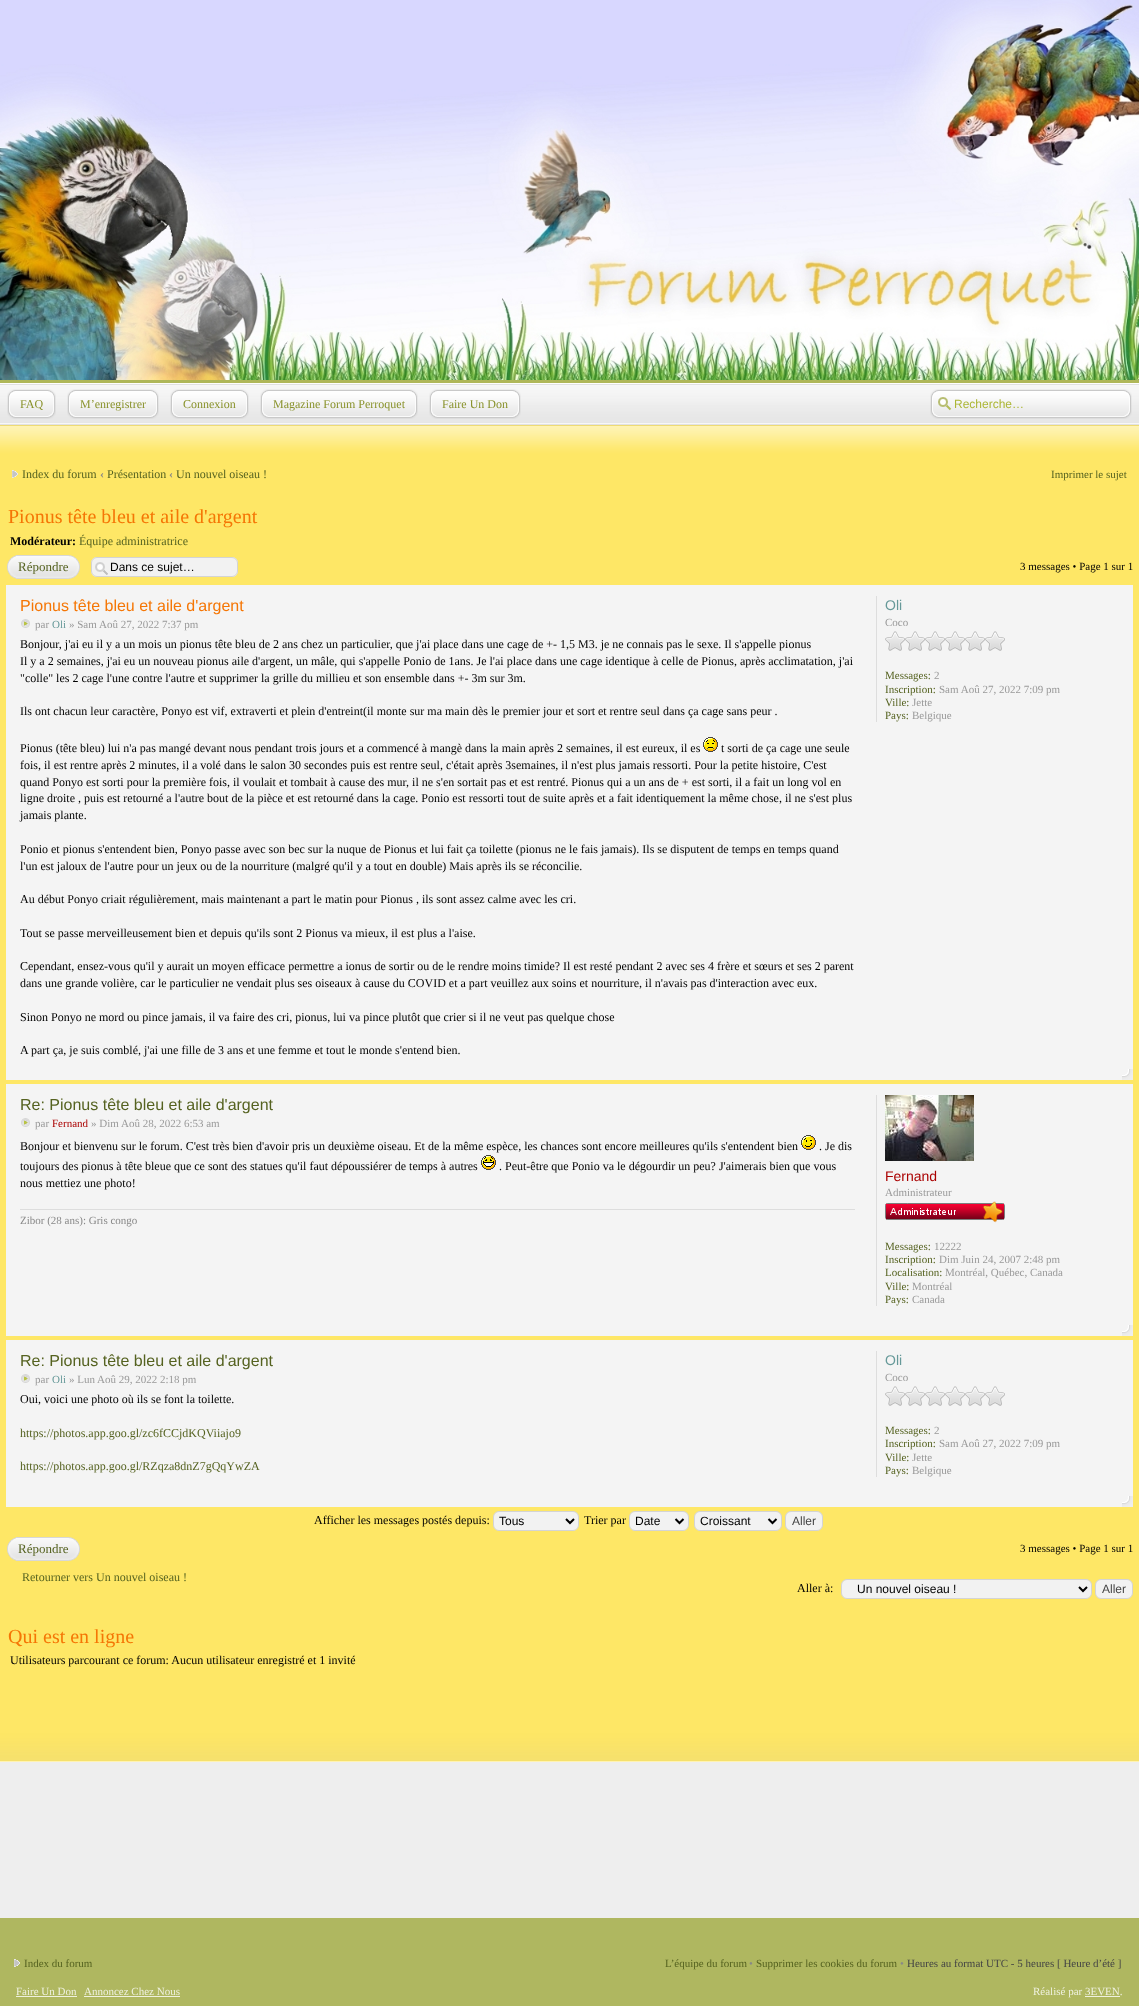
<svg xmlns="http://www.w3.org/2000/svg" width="1139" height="2006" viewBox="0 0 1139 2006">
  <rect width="100%" height="100%" fill="#eee"/>
  <path d="M0 380h1139v3H0z" fill="#afb759"/>
  <path d="M0 383h1139v1H0z" fill="#fff"/>
  <image x="0" y="0" width="1139" height="380" href="img/1.png"/>
  <image x="0" y="384" width="1139" height="40" href="img/2.png"/>
  <image x="16" y="389" width="40" height="30" href="img/3.png"/>
  <image x="7" y="389" width="9" height="30" href="img/4.png"/>
  <image x="76" y="389" width="83" height="30" href="img/5.png"/>
  <image x="67" y="389" width="9" height="30" href="img/4.png"/>
  <image x="179" y="389" width="70" height="30" href="img/6.png"/>
  <image x="170" y="389" width="9" height="30" href="img/4.png"/>
  <image x="269" y="389" width="149" height="30" href="img/7.png"/>
  <image x="260" y="389" width="9" height="30" href="img/4.png"/>
  <image x="438" y="389" width="83" height="30" href="img/5.png"/>
  <image x="429" y="389" width="9" height="30" href="img/4.png"/>
  <image x="930" y="389" width="202" height="30" href="img/8.png"/>
  <path d="M0 425h1139v1337H0z" fill="#fee766"/>
  <image x="0" y="425" width="1139" height="1337" href="img/9.png"/>
  <path d="M0 424h1139v1H0z" fill="#e2e2e2"/>
  <image x="12" y="470" width="6" height="8" href="img/10.png"/>
  <image x="16" y="555" width="64" height="24" href="img/11.png"/>
  <image x="7" y="555" width="9" height="24" href="img/12.png"/>
  <rect x="91" y="557" width="147" height="20" rx="6" fill="#f2f2f2"/>
  <image x="95" y="562" width="13" height="13" href="img/13.png"/>
  <rect x="91.5" y="557.5" width="146" height="19" rx="5.5" fill="none" stroke="#d4d4d4"/>
  <path d="M6 585h1127v495H6z" fill="#f4f4f4"/>
  <image x="1122" y="1069" width="11" height="11" href="img/14.png"/>
  <image x="21" y="619" width="9" height="9" href="img/15.png"/>
  <image x="703" y="737" width="15" height="15" href="img/16.png"/>
  <path d="M876 596h1v126H876z" fill="#ddd"/>
  <image x="885" y="631" width="120" height="20" href="img/17.png"/>
  <path d="M6 1084h1127v252H6z" fill="#f4f4f4"/>
  <image x="1122" y="1325" width="11" height="11" href="img/14.png"/>
  <image x="21" y="1118" width="9" height="9" href="img/15.png"/>
  <image x="801" y="1135" width="15" height="15" href="img/18.png"/>
  <image x="481" y="1155" width="15" height="15" href="img/19.png"/>
  <path d="M20 1209h835v1H20z" fill="#ddd"/>
  <path d="M876 1095h1v211H876z" fill="#ddd"/>
  <image x="885" y="1095" width="89" height="66" href="img/20.png"/>
  <image x="885" y="1201" width="120" height="22" href="img/21.png"/>
  <path d="M6 1340h1127v167H6z" fill="#f4f4f4"/>
  <image x="1122" y="1496" width="11" height="11" href="img/14.png"/>
  <image x="21" y="1374" width="9" height="9" href="img/15.png"/>
  <path d="M876 1351h1v126H876z" fill="#ddd"/>
  <image x="885" y="1386" width="120" height="20" href="img/17.png"/>
  <rect x="493.5" y="1511.5" width="85" height="19" rx="5.5" fill="#f2f2f2" stroke="#d4d4d4"/>
  <path d="M566 1519L570 1523L574 1519" fill="none" stroke="#000" stroke-width="2"/>
  <rect x="629.5" y="1511.5" width="59" height="19" rx="5.5" fill="#f2f2f2" stroke="#d4d4d4"/>
  <path d="M675.5 1519L679.5 1523L683.5 1519" fill="none" stroke="#000" stroke-width="2"/>
  <rect x="694.5" y="1511.5" width="87" height="19" rx="5.5" fill="#f2f2f2" stroke="#d4d4d4"/>
  <path d="M768.5 1519L772.5 1523L776.5 1519" fill="none" stroke="#000" stroke-width="2"/>
  <rect x="785.5" y="1511.5" width="37" height="19" rx="5.5" fill="#f2f2f2" stroke="#d4d4d4"/>
  <image x="16" y="1537" width="64" height="24" href="img/11.png"/>
  <image x="7" y="1537" width="9" height="24" href="img/12.png"/>
  <rect x="841.5" y="1579.5" width="250" height="19" rx="5.5" fill="#f2f2f2" stroke="#d4d4d4"/>
  <path d="M1079 1587L1083 1591L1087 1587" fill="none" stroke="#000" stroke-width="2"/>
  <rect x="1095.5" y="1579.5" width="37" height="19" rx="5.5" fill="#f2f2f2" stroke="#d4d4d4"/>
  <path d="M0 1918h1139v88H0z" fill="#afb760"/>
  <image x="14" y="1959" width="6" height="8" href="img/22.png"/>
  <path d="M16 1996h61v1H16z" fill="#eff1df"/>
  <path d="M84 1996h96v1H84z" fill="#eff1df"/>
  <path d="M1085 1996h35v1H1085z" fill="#eff1df"/>
  <g font-family="Liberation Serif" font-size="12" fill="#89922b">
    <text x="20" y="408">FAQ</text>
    <text x="80" y="408">M’enregistrer</text>
    <text x="183" y="408">Connexion</text>
    <text x="273" y="408">Magazine Forum Perroquet</text>
    <text x="442" y="408">Faire Un Don</text>
  </g>
  <text x="954" y="408" font-family="Liberation Sans" font-size="12" fill="#acb635">Recherche…</text>
  <text x="22" y="478" font-family="Liberation Serif" font-size="12" fill="#556220">Index du forum</text>
  <text x="100" y="478" font-family="Liberation Serif" font-size="12" font-weight="bold" fill="#888">‹</text>
  <text x="107" y="478" font-family="Liberation Serif" font-size="12" fill="#556220">Présentation</text>
  <text x="169" y="478" font-family="Liberation Serif" font-size="12" font-weight="bold" fill="#888">‹</text>
  <text x="176" y="478" font-family="Liberation Serif" font-size="12" fill="#556220">Un nouvel oiseau !</text>
  <text x="1051" y="478" font-family="Liberation Serif" font-size="11" fill="#556220">Imprimer le sujet</text>
  <text x="8" y="523" font-family="Liberation Serif" font-size="20" fill="#f57605">Pionus tête bleu et aile d'argent</text>
  <text x="10" y="545" font-family="Liberation Serif" font-size="12" font-weight="bold" fill="#000">Modérateur:</text>
  <text x="79" y="545" font-family="Liberation Serif" font-size="12" fill="#556220">Équipe administratrice</text>
  <text x="18" y="571" font-family="Liberation Serif" font-size="13" fill="#556220">Répondre</text>
  <text x="110" y="571" font-family="Liberation Sans" font-size="12" fill="#000">Dans ce sujet…</text>
  <text x="1020" y="570" font-family="Liberation Serif" font-size="11" fill="#000">3 messages • Page 1 sur 1</text>
  <text x="20" y="611" font-family="Liberation Sans" font-size="16" fill="#f57605">Pionus tête bleu et aile d'argent</text>
  <text x="35" y="628" font-family="Liberation Serif" font-size="11" fill="#999">par</text>
  <text x="52" y="628" font-family="Liberation Serif" font-size="11" fill="#699">Oli</text>
  <text x="69" y="628" font-family="Liberation Serif" font-size="11" fill="#999">» Sam Aoû 27, 2022 7:37 pm</text>
  <g font-family="Liberation Serif" font-size="12" fill="#000">
    <text x="20" y="648">Bonjour, j'ai eu il y a un mois un pionus tête bleu de 2 ans chez un particulier, que j'ai place dans une cage de +- 1,5 M3. je ne connais pas le sexe. Il s'appelle pionus</text>
    <text x="20" y="665">Il y a 2 semaines, j'ai eu un nouveau pionus aile d'argent, un mâle, qui s'appelle Ponio de 1ans. Je l'ai place dans une cage identique à celle de Pionus, après acclimatation, j'ai</text>
    <text x="20" y="682">"colle" les 2 cage l'une contre l'autre et supprimer la grille du millieu et son ensemble dans +- 3m sur 3m.</text>
    <text x="20" y="715">Ils ont chacun leur caractère, Ponyo est vif, extraverti et plein d'entreint(il monte sur ma main dès le premier jour et sort et rentre seul dans ça cage sans peur .</text>
    <text x="20" y="752">Pionus (tête bleu) lui n'a pas mangé devant nous pendant trois jours et a commencé à mangè dans la main après 2 semaines, il est eureux, il es</text>
    <text x="721" y="752">t sorti de ça cage une seule</text>
    <text x="20" y="769">fois, il est rentre après 2 minutes, il a volé dans le salon 30 secondes puis est rentre seul, c'était après 3semaines, il n'est plus jamais ressorti. Pour la petite histoire, C'est</text>
    <text x="20" y="786">quand Ponyo est sorti pour la première fois, il voulait et tombait à cause des mur, il ne s'en sortait pas et est rentré. Pionus qui a un ans de + est sorti, il a fait un long vol en</text>
    <text x="20" y="802">ligne droite , puis est retourné a l'autre bout de la pièce et est retourné dans la cage. Ponio est ressorti tout de suite après et a fait identiquement la même chose, il ne s'est plus</text>
    <text x="20" y="819">jamais plante.</text>
    <text x="20" y="853">Ponio et pionus s'entendent bien, Ponyo passe avec son bec sur la nuque de Pionus et lui fait ça toilette (pionus ne le fais jamais). Ils se disputent de temps en temps quand</text>
    <text x="20" y="870">l'un est jaloux de l'autre pour un jeux ou de la nourriture (malgré qu'il y a tout en double) Mais après ils se réconcilie.</text>
    <text x="20" y="903">Au début Ponyo criait régulièrement, mais maintenant a part le matin pour Pionus , ils sont assez calme avec les cri.</text>
    <text x="20" y="937">Tout se passe merveilleusement bien et depuis qu'ils sont 2 Pionus va mieux, il est plus a l'aise.</text>
    <text x="20" y="970">Cependant, ensez-vous qu'il y aurait un moyen efficace permettre a ionus de sortir ou de le rendre moins timide? Il est resté pendant 2 avec ses 4 frère et sœurs et ses 2 parent</text>
    <text x="20" y="987">dans une grande volière, car le particulier ne vendait plus ses oiseaux à cause du COVID et a part veuillez aux soins et nourriture, il n'avais pas d'interaction avec eux.</text>
    <text x="20" y="1021">Sinon Ponyo ne mord ou pince jamais, il va faire des cri, pionus, lui va pince plutôt que crier si il ne veut pas quelque chose</text>
    <text x="20" y="1054">A part ça, je suis comblé, j'ai une fille de 3 ans et une femme et tout le monde s'entend bien.</text>
  </g>
  <text x="885" y="610" font-family="Liberation Sans" font-size="14" fill="#699">Oli</text>
  <text x="885" y="626" font-family="Liberation Serif" font-size="11" fill="#999">Coco</text>
  <text x="885" y="679" font-family="Liberation Serif" font-size="11" fill="#556220">Messages:</text>
  <text x="934" y="679" font-family="Liberation Serif" font-size="11" fill="#999">2</text>
  <text x="885" y="693" font-family="Liberation Serif" font-size="11" fill="#556220">Inscription:</text>
  <text x="939" y="693" font-family="Liberation Serif" font-size="11" fill="#999">Sam Aoû 27, 2022 7:09 pm</text>
  <text x="885" y="706" font-family="Liberation Serif" font-size="11" fill="#556220">Ville:</text>
  <text x="912" y="706" font-family="Liberation Serif" font-size="11" fill="#999">Jette</text>
  <text x="885" y="719" font-family="Liberation Serif" font-size="11" fill="#556220">Pays:</text>
  <text x="912" y="719" font-family="Liberation Serif" font-size="11" fill="#999">Belgique</text>
  <text x="20" y="1110" font-family="Liberation Sans" font-size="16" fill="#556220">Re: Pionus tête bleu et aile d'argent</text>
  <text x="35" y="1127" font-family="Liberation Serif" font-size="11" fill="#999">par</text>
  <text x="52" y="1127" font-family="Liberation Serif" font-size="11" fill="#a00">Fernand</text>
  <text x="91" y="1127" font-family="Liberation Serif" font-size="11" fill="#999">» Dim Aoû 28, 2022 6:53 am</text>
  <g font-family="Liberation Serif" font-size="12" fill="#000">
    <text x="20" y="1150">Bonjour et bienvenu sur le forum. C'est très bien d'avoir pris un deuxième oiseau. Et de la même espèce, les chances sont encore meilleures qu'ils s'entendent bien</text>
    <text x="819" y="1150">. Je dis</text>
    <text x="20" y="1170">toujours des pionus à tête bleue que ce sont des statues qu'il faut dépoussiérer de temps à autres</text>
    <text x="499" y="1170">. Peut-être que Ponio va le dégourdir un peu? J'aimerais bien que vous</text>
    <text x="20" y="1187">nous mettiez une photo!</text>
  </g>
  <text x="20" y="1224" font-family="Liberation Serif" font-size="11" fill="#888">Zibor (28 ans): Gris congo</text>
  <text x="885" y="1181" font-family="Liberation Sans" font-size="14" fill="#a00">Fernand</text>
  <text x="885" y="1196" font-family="Liberation Serif" font-size="11" fill="#999">Administrateur</text>
  <text x="885" y="1250" font-family="Liberation Serif" font-size="11" fill="#556220">Messages:</text>
  <text x="934" y="1250" font-family="Liberation Serif" font-size="11" fill="#999">12222</text>
  <text x="885" y="1263" font-family="Liberation Serif" font-size="11" fill="#556220">Inscription:</text>
  <text x="939" y="1263" font-family="Liberation Serif" font-size="11" fill="#999">Dim Juin 24, 2007 2:48 pm</text>
  <text x="885" y="1276" font-family="Liberation Serif" font-size="11" fill="#556220">Localisation:</text>
  <text x="945" y="1276" font-family="Liberation Serif" font-size="11" fill="#999">Montréal, Québec, Canada</text>
  <text x="885" y="1290" font-family="Liberation Serif" font-size="11" fill="#556220">Ville:</text>
  <text x="912" y="1290" font-family="Liberation Serif" font-size="11" fill="#999">Montréal</text>
  <text x="885" y="1303" font-family="Liberation Serif" font-size="11" fill="#556220">Pays:</text>
  <text x="912" y="1303" font-family="Liberation Serif" font-size="11" fill="#999">Canada</text>
  <text x="20" y="1366" font-family="Liberation Sans" font-size="16" fill="#556220">Re: Pionus tête bleu et aile d'argent</text>
  <text x="35" y="1383" font-family="Liberation Serif" font-size="11" fill="#999">par</text>
  <text x="52" y="1383" font-family="Liberation Serif" font-size="11" fill="#699">Oli</text>
  <text x="69" y="1383" font-family="Liberation Serif" font-size="11" fill="#999">» Lun Aoû 29, 2022 2:18 pm</text>
  <text x="20" y="1403" font-family="Liberation Serif" font-size="12" fill="#000">Oui, voici une photo où ils se font la toilette.</text>
  <g font-family="Liberation Serif" font-size="12" fill="#556220">
    <text x="20" y="1437">https://photos.app.goo.gl/zc6fCCjdKQViiajo9</text>
    <text x="20" y="1470">https://photos.app.goo.gl/RZqza8dnZ7gQqYwZA</text>
  </g>
  <text x="885" y="1365" font-family="Liberation Sans" font-size="14" fill="#699">Oli</text>
  <text x="885" y="1381" font-family="Liberation Serif" font-size="11" fill="#999">Coco</text>
  <text x="885" y="1434" font-family="Liberation Serif" font-size="11" fill="#556220">Messages:</text>
  <text x="934" y="1434" font-family="Liberation Serif" font-size="11" fill="#999">2</text>
  <text x="885" y="1447" font-family="Liberation Serif" font-size="11" fill="#556220">Inscription:</text>
  <text x="939" y="1447" font-family="Liberation Serif" font-size="11" fill="#999">Sam Aoû 27, 2022 7:09 pm</text>
  <text x="885" y="1461" font-family="Liberation Serif" font-size="11" fill="#556220">Ville:</text>
  <text x="912" y="1461" font-family="Liberation Serif" font-size="11" fill="#999">Jette</text>
  <text x="885" y="1474" font-family="Liberation Serif" font-size="11" fill="#556220">Pays:</text>
  <text x="912" y="1474" font-family="Liberation Serif" font-size="11" fill="#999">Belgique</text>
  <text x="314" y="1524" font-family="Liberation Serif" font-size="12" fill="#000">Afficher les messages postés depuis:</text>
  <text x="499" y="1525" font-family="Liberation Sans" font-size="12" fill="#000">Tous</text>
  <text x="584" y="1524" font-family="Liberation Serif" font-size="12" fill="#000">Trier par</text>
  <g font-family="Liberation Sans" font-size="12" fill="#000">
    <text x="635" y="1525">Date</text>
    <text x="700" y="1525">Croissant</text>
  </g>
  <text x="792" y="1525" font-family="Liberation Sans" font-size="12" fill="#444">Aller</text>
  <text x="18" y="1553" font-family="Liberation Serif" font-size="13" fill="#556220">Répondre</text>
  <text x="1020" y="1552" font-family="Liberation Serif" font-size="11" fill="#000">3 messages • Page 1 sur 1</text>
  <text x="22" y="1581" font-family="Liberation Serif" font-size="12" fill="#556220">Retourner vers Un nouvel oiseau !</text>
  <text x="797" y="1592" font-family="Liberation Serif" font-size="12" fill="#000">Aller à:</text>
  <text x="857" y="1593" font-family="Liberation Sans" font-size="12" fill="#000">Un nouvel oiseau !</text>
  <text x="1102" y="1593" font-family="Liberation Sans" font-size="12" fill="#444">Aller</text>
  <text x="8" y="1643" font-family="Liberation Serif" font-size="20" fill="#f57605">Qui est en ligne</text>
  <text x="10" y="1664" font-family="Liberation Serif" font-size="12" fill="#000">Utilisateurs parcourant ce forum: Aucun utilisateur enregistré et 1 invité</text>
  <g font-family="Liberation Serif" font-size="11" fill="#556220">
    <text x="24" y="1967">Index du forum</text>
    <text x="665" y="1967">L’équipe du forum</text>
  </g>
  <text x="749" y="1967" font-family="Liberation Serif" font-size="11" fill="#888">•</text>
  <text x="756" y="1967" font-family="Liberation Serif" font-size="11" fill="#556220">Supprimer les cookies du forum</text>
  <text x="900" y="1967" font-family="Liberation Serif" font-size="11" fill="#888">•</text>
  <text x="907" y="1967" font-family="Liberation Serif" font-size="11" fill="#444">Heures au format UTC - 5 heures [ Heure d’été ]</text>
  <g font-family="Liberation Serif" font-size="11" fill="#eff1df">
    <text x="16" y="1995">Faire Un Don</text>
    <text x="84" y="1995">Annoncez Chez Nous</text>
    <text x="1033" y="1995">Réalisé par 3EVEN.</text>
  </g>
</svg>
